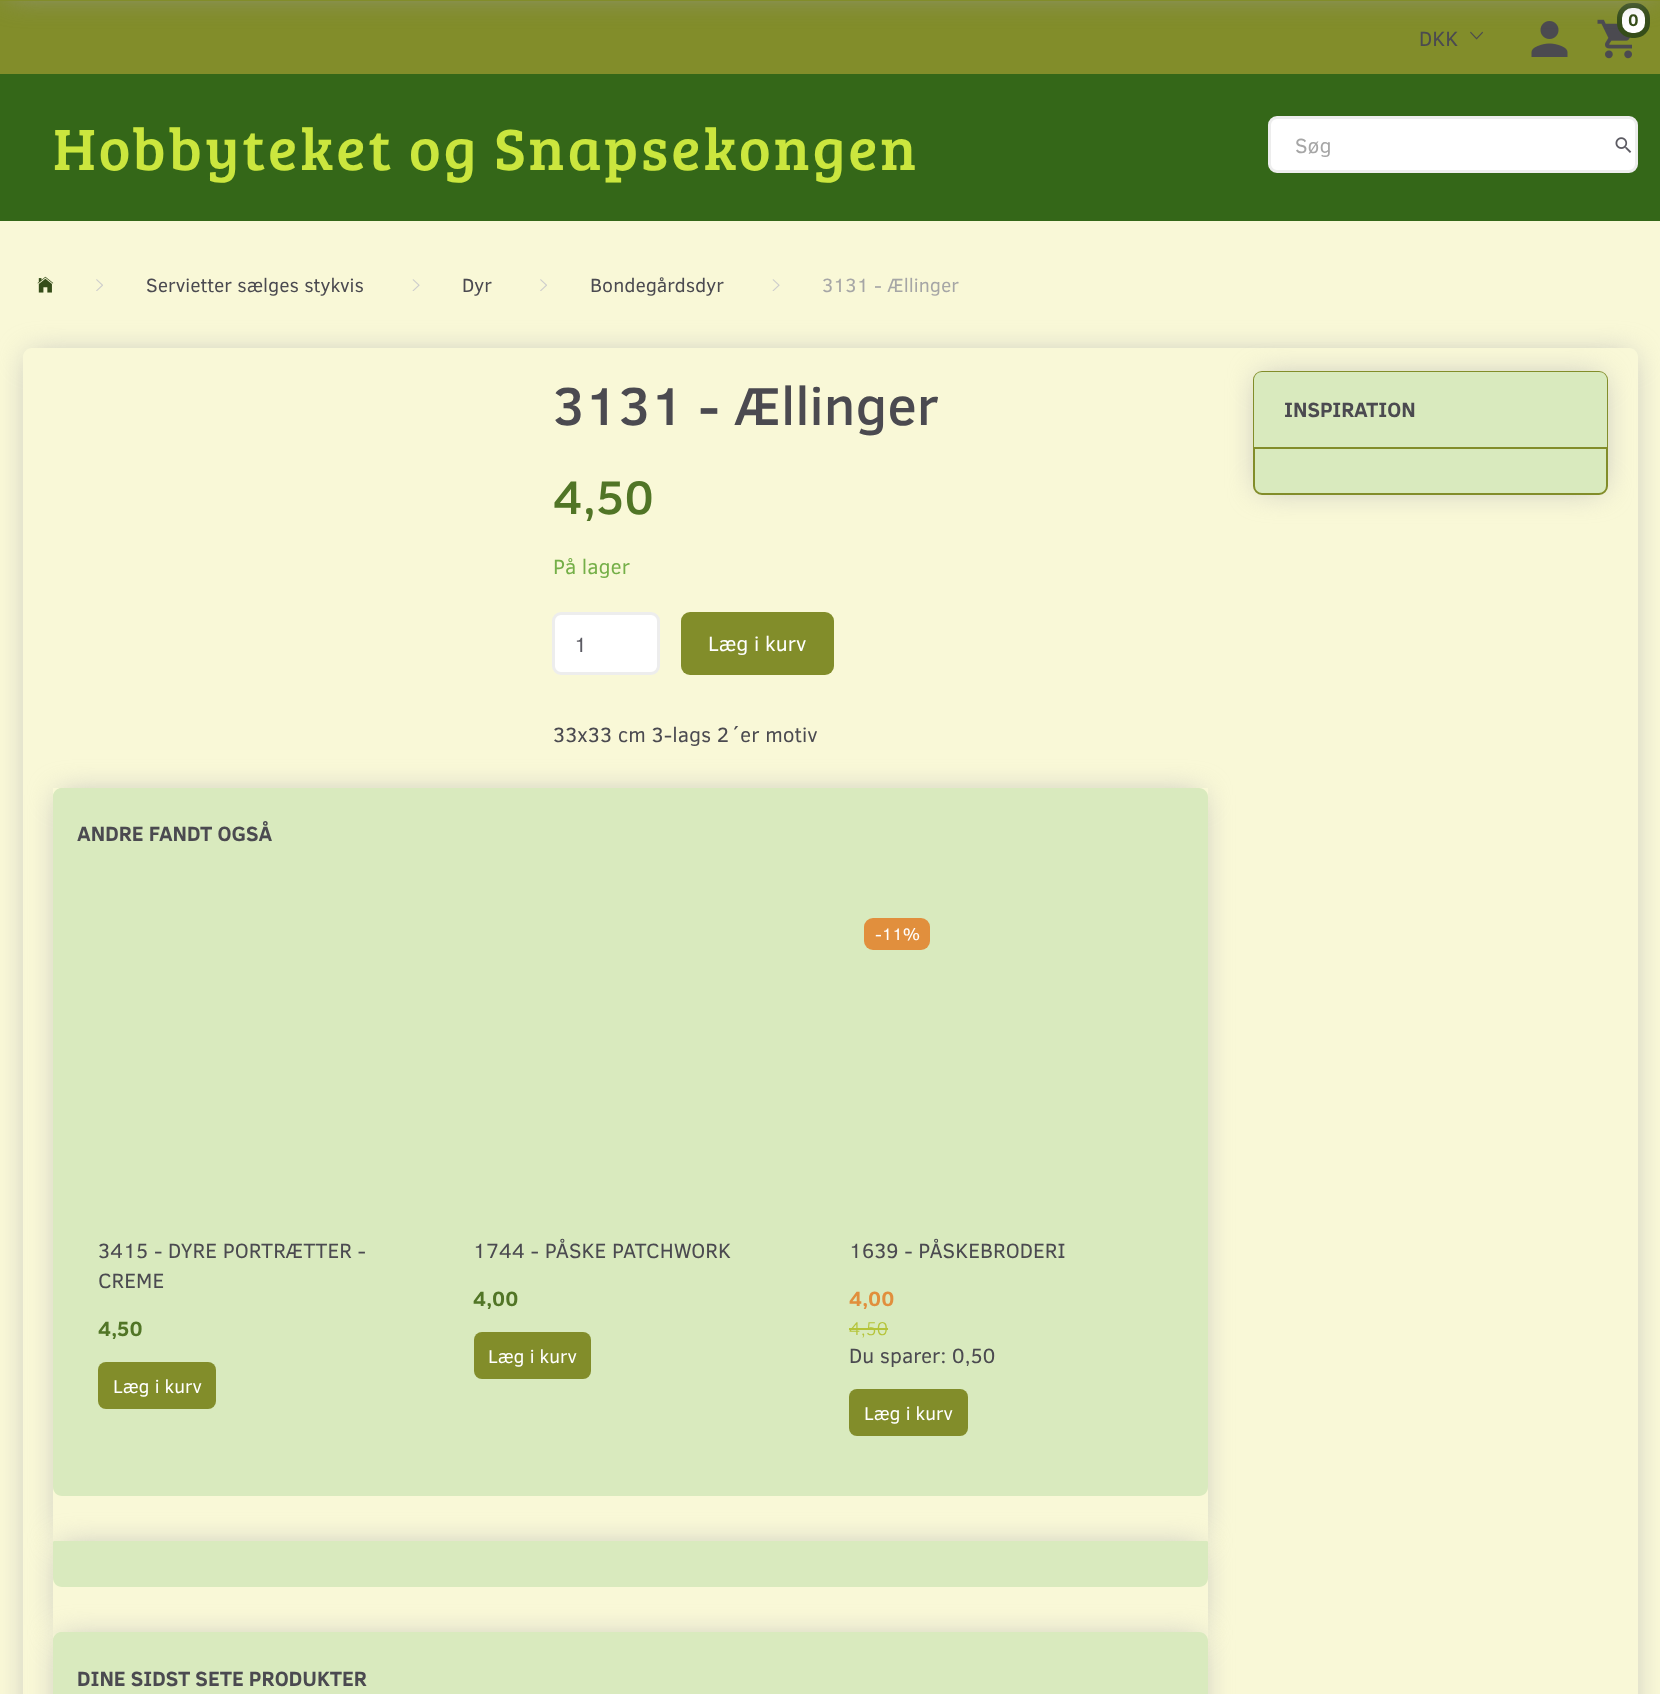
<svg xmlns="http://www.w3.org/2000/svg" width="1660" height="1694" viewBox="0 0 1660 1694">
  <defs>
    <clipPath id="clip1"><path d="M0 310H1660V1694H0ZM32 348H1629C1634 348 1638 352 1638 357V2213C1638 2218 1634 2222 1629 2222H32C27 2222 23 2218 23 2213V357C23 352 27 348 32 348Z" clip-rule="evenodd"/></clipPath>
    <clipPath id="clip2"><path d="M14 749H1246V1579H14ZM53 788H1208V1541H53Z" clip-rule="evenodd"/></clipPath>
    <clipPath id="clip3"><path d="M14 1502H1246V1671H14ZM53 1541H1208V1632H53Z" clip-rule="evenodd"/></clipPath>
    <clipPath id="clip4"><path d="M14 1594H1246V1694H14ZM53 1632H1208V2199H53Z" clip-rule="evenodd"/></clipPath>
  </defs>
  <rect width="100%" height="100%" fill="#346718"/>
  <path d="M0 1h1660v73H0z" fill="#828d2a"/>
  <image x="1470" y="31" width="13" height="9" href="img/1.png"/>
  <image x="1531" y="21" width="37" height="36" href="img/2.png"/>
  <image x="1597" y="19" width="35" height="40" href="img/3.png"/>
  <rect x="1619.5" y="5.5" width="28" height="30" rx="12.5" fill="#fff" stroke="#354d19" stroke-width="5"/>
  <path d="M8 -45h1645v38H8z" fill="#949494" filter="blur(15px)"/>
  <path d="M0 0h1660v1H0z" fill="#828d2a"/>
  <rect x="1269.5" y="117.5" width="367" height="54" rx="7.5" fill="#fff" stroke="#ededed" stroke-width="3"/>
  <image x="1615" y="137" width="17" height="16" href="img/4.png"/>
  <path d="M0 221h1660v1473H0z" fill="#f9f8d7"/>
  <image x="37" y="276" width="17" height="17" href="img/5.png"/>
  <image x="96" y="279" width="7" height="12" href="img/6.png"/>
  <image x="412" y="279" width="8" height="12" href="img/7.png"/>
  <image x="540" y="279" width="7" height="12" href="img/6.png"/>
  <image x="772" y="279" width="8" height="12" href="img/7.png"/>
  <g clip-path="url(#clip1)">
    <rect x="30" y="356" width="1601" height="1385" rx="1.5" fill="#b8b8b8" filter="blur(15px)"/>
  </g>
  <rect x="553.5" y="613.5" width="105" height="60" rx="7.5" fill="#fff" stroke="#ededed" stroke-width="3"/>
  <rect x="681" y="612" width="153" height="63" rx="9" fill="#828d2a"/>
  <g clip-path="url(#clip2)">
    <path d="M60 795h1140v738H60z" fill="#b8b8b8" filter="blur(15px)"/>
  </g>
  <path d="M62 788H1199C1204 788 1208 792 1208 797V881H53V797C53 792 57 788 62 788Z" fill="#d9eabe"/>
  <path d="M62 788H296V881H53V797C53 792 57 788 62 788Z" fill="#d9eabe"/>
  <path d="M53 881H1208V1487C1208 1492 1204 1496 1199 1496H62C57 1496 53 1492 53 1487Z" fill="#d9eabe"/>
  <rect x="98" y="1362" width="118" height="47" rx="8" fill="#828d2a"/>
  <rect x="474" y="1332" width="117" height="47" rx="8" fill="#828d2a"/>
  <rect x="864" y="918" width="66" height="32" rx="9" fill="#e18f3d"/>
  <path d="M849 1328h39v2H849z" fill="#b5c43a"/>
  <rect x="849" y="1389" width="119" height="47" rx="8" fill="#828d2a"/>
  <g clip-path="url(#clip3)">
    <path d="M60 1548h1140v77H60z" fill="#b8b8b8" filter="blur(15px)"/>
  </g>
  <path d="M53 1542H1208V1578C1208 1583 1204 1587 1199 1587H62C57 1587 53 1583 53 1578Z" fill="#d9eabe"/>
  <path d="M54.5 1541H1206.5C1207.5 1541 1208 1541.5 1208 1542.5V1543H53V1542.5C53 1541.5 53.5 1541 54.5 1541Z" fill="#d9eabe"/>
  <g clip-path="url(#clip4)">
    <path d="M60 1640h1140v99H60z" fill="#b8b8b8" filter="blur(15px)"/>
  </g>
  <path d="M62 1632H1199C1204 1632 1208 1636 1208 1641V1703H53V1641C53 1636 57 1632 62 1632Z" fill="#d9eabe"/>
  <path d="M62 1632H390V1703H53V1641C53 1636 57 1632 62 1632Z" fill="#d9eabe"/>
  <rect x="1260" y="378" width="341" height="110" rx="1.5" fill="#b8b8b8" filter="blur(15px)"/>
  <rect x="1254" y="372" width="353" height="122" rx="8" fill="#d9eabe" stroke="#828d2a" stroke-width="2"/>
  <path d="M1262 372H1599C1603.5 372 1607 375.5 1607 380V449H1254V380C1254 375.5 1257.5 372 1262 372Z" fill="#d9eabe"/>
  <path d="M1254 447h353v2H1254z" fill="#828d2a"/>
  <text x="1419" y="46" font-family="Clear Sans" font-size="21" fill="#4b4a50">DKK</text>
  <text x="1628" y="26" font-family="Clear Sans" font-size="17" font-weight="bold" fill="#354d19">0</text>
  <text x="53" y="170" font-family="Bree Serif" font-size="60" letter-spacing="3" fill="#cbe63e">Hobbyteket og Snapsekongen</text>
  <text x="1295" y="153" font-family="Clear Sans" font-size="21" fill="#a6a6a6">Søg</text>
  <g font-family="Clear Sans" font-size="19.5" fill="#4b4a50">
    <text x="146" y="292">Servietter sælges stykvis</text>
    <text x="462" y="292">Dyr</text>
    <text x="590" y="292">Bondegårdsdyr</text>
  </g>
  <text x="822" y="292" font-family="Clear Sans" font-size="19.5" fill="#a6a6a6">3131 - Ællinger</text>
  <text x="553" y="425" font-family="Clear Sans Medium" font-size="54.5" font-weight="500" fill="#4b4a50">3131 - Ællinger</text>
  <text x="553" y="514" font-family="Clear Sans Medium" font-size="48" font-weight="500" fill="#517526">4,50</text>
  <text x="553" y="574" font-family="Clear Sans" font-size="21" fill="#75af48">På lager</text>
  <text x="574" y="652" font-family="Clear Sans" font-size="21" fill="#5c5b63">1</text>
  <text x="708" y="651" font-family="Clear Sans" font-size="21" fill="#fff">Læg i kurv</text>
  <text x="553" y="742" font-family="Clear Sans" font-size="21" fill="#4b4a50">33x33 cm 3-lags 2´er motiv</text>
  <text x="77" y="841" font-family="Clear Sans" font-size="21" font-weight="bold" fill="#4b4a50">ANDRE FANDT OGSÅ</text>
  <g font-family="Clear Sans" font-size="21" fill="#4b4a50">
    <text x="98" y="1258">3415 - DYRE PORTRÆTTER -</text>
    <text x="98" y="1288">CREME</text>
  </g>
  <text x="98" y="1336" font-family="Clear Sans" font-size="21" font-weight="bold" fill="#517526">4,50</text>
  <text x="113" y="1393" font-family="Clear Sans" font-size="19" fill="#fff">Læg i kurv</text>
  <text x="473" y="1258" font-family="Clear Sans" font-size="21" fill="#4b4a50">1744 - PÅSKE PATCHWORK</text>
  <text x="473" y="1306" font-family="Clear Sans" font-size="21" font-weight="bold" fill="#517526">4,00</text>
  <text x="488" y="1363" font-family="Clear Sans" font-size="19" fill="#fff">Læg i kurv</text>
  <text x="875" y="940" font-family="Clear Sans" font-size="17" fill="#fff">-11%</text>
  <text x="849" y="1258" font-family="Clear Sans" font-size="21" fill="#4b4a50">1639 - PÅSKEBRODERI</text>
  <text x="849" y="1306" font-family="Clear Sans" font-size="21" font-weight="bold" fill="#e18f3d">4,00</text>
  <text x="849" y="1335" font-family="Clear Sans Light" font-size="19" font-weight="300" fill="#b5c43a">4,50</text>
  <text x="849" y="1363" font-family="Clear Sans" font-size="21" fill="#4b4a50">Du sparer: 0,50</text>
  <text x="864" y="1420" font-family="Clear Sans" font-size="19" fill="#fff">Læg i kurv</text>
  <g font-family="Clear Sans" font-size="21" font-weight="bold" fill="#4b4a50">
    <text x="77" y="1686">DINE SIDST SETE PRODUKTER</text>
    <text x="1284" y="417">INSPIRATION</text>
  </g>
</svg>
